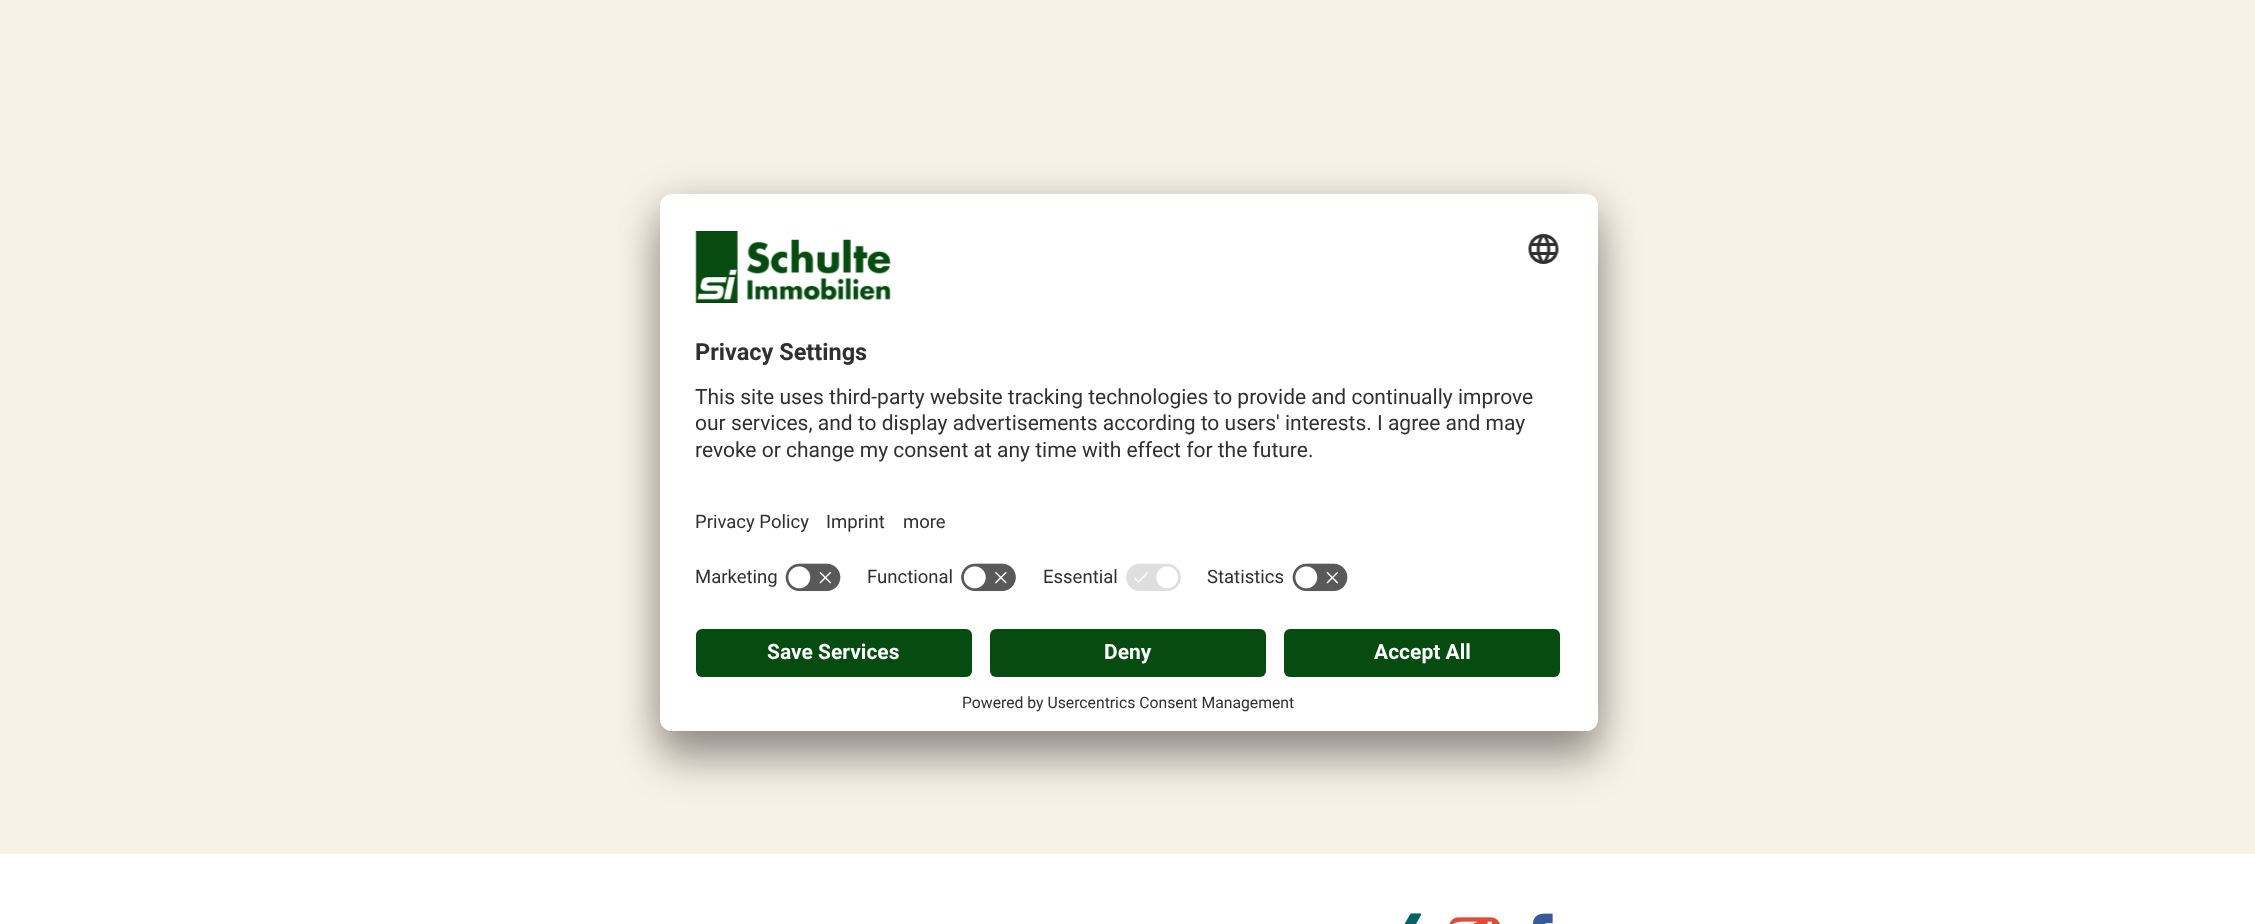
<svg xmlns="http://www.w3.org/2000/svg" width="2255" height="924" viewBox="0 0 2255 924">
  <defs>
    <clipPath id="clip1"><rect x="660" y="194" width="938" height="537" rx="12"/></clipPath>
    <clipPath id="clip2"><path d="M672 194H1586C1592.5 194 1598 199.5 1598 206V617H660V206C660 199.5 665.5 194 672 194Z"/></clipPath>
  </defs>
  <rect width="100%" height="100%" fill="#fff"/>
  <path d="M0 0h2255v854H0z" fill="#f8f1e6"/>
  <rect x="660" y="224" width="938" height="537" rx="12" fill="#0000004d" filter="blur(21px)"/>
  <rect x="660" y="201" width="938" height="537" rx="12" fill="#00000038" filter="blur(19.5px)"/>
  <rect x="660" y="194" width="938" height="537" rx="12" fill="#fff"/>
  <g clip-path="url(#clip1)">
    <g clip-path="url(#clip2)">
      <path d="M660 195h938v422H660z" fill="#fff"/>
      <path d="M660 195h938v362H660z" fill="#fff"/>
    </g>
  </g>
  <image x="695" y="231" width="196" height="72" href="img/1.png"/>
  <image x="1528" y="234" width="31" height="30" href="img/2.png"/>
  <image x="785" y="563" width="56" height="29" href="img/3.png"/>
  <image x="961" y="563" width="55" height="29" href="img/4.png"/>
  <image x="1126" y="563" width="55" height="28" href="img/5.png"/>
  <image x="1292" y="563" width="56" height="29" href="img/3.png"/>
  <path d="M660 617H1598V719C1598 725.5 1592.5 731 1586 731H672C665.5 731 660 725.5 660 719Z" fill="#fff"/>
  <rect x="696" y="629" width="276" height="48" rx="6" fill="#064c10"/>
  <rect x="990" y="629" width="276" height="48" rx="6" fill="#064c10"/>
  <rect x="1284" y="629" width="276" height="48" rx="6" fill="#064c10"/>
  <image x="1404" y="913" width="18" height="11" href="img/6.png"/>
  <image x="1449" y="917" width="51" height="7" href="img/7.png"/>
  <image x="1532" y="913" width="21" height="11" href="img/8.png"/>
  <text x="695" y="360" font-family="Roboto" font-size="23.5" font-weight="bold" fill="#303030">Privacy Settings</text>
  <g font-family="Roboto" font-size="21" fill="#303030">
    <text x="695" y="404">This site uses third-party website tracking technologies to provide and continually improve</text>
    <text x="695" y="430">our services, and to display advertisements according to users' interests. I agree and may</text>
    <text x="695" y="457">revoke or change my consent at any time with effect for the future.</text>
  </g>
  <g font-family="Roboto" font-size="18.5" fill="#303030">
    <text x="695" y="528">Privacy Policy</text>
    <text x="826" y="528">Imprint</text>
    <text x="903" y="528">more</text>
    <text x="695" y="583">Marketing</text>
    <text x="867" y="583">Functional</text>
    <text x="1043" y="583">Essential</text>
    <text x="1207" y="583">Statistics</text>
  </g>
  <g font-family="Roboto" font-size="21" font-weight="bold" fill="#fff">
    <text x="767" y="659">Save Services</text>
    <text x="1104" y="659">Deny</text>
    <text x="1374" y="659">Accept All</text>
  </g>
  <text x="962" y="708" font-family="Roboto" font-size="15.75" fill="#303030">Powered by Usercentrics Consent Management</text>
</svg>
